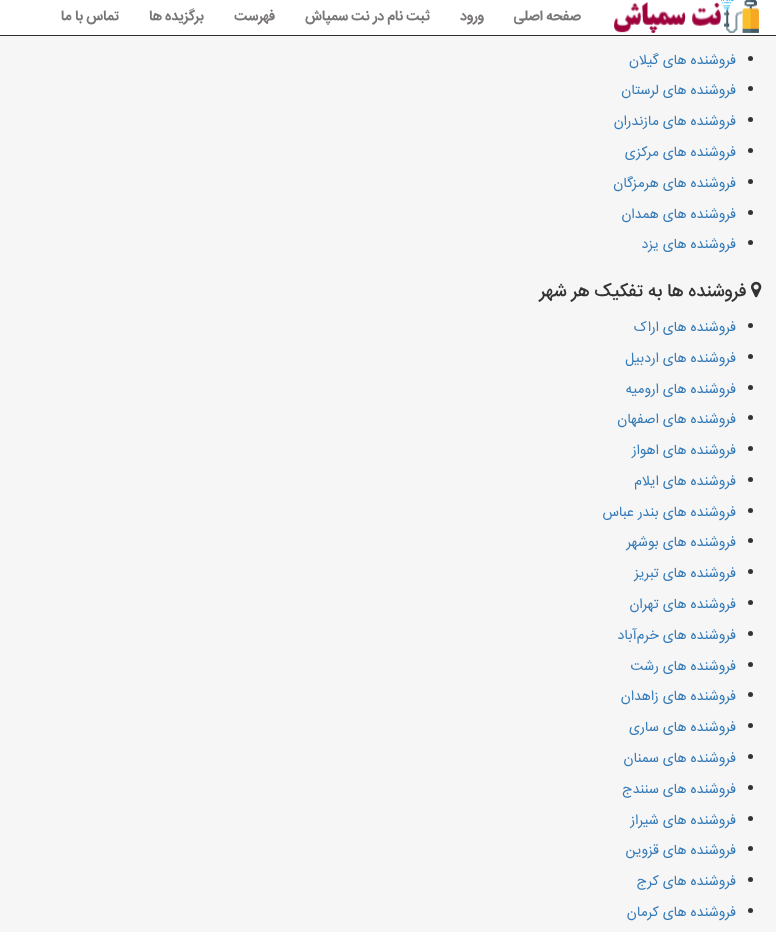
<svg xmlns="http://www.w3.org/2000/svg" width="776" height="932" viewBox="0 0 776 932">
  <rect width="100%" height="100%" fill="#f7f6f6"/>
  <path d="M0 0h776v35H0z" fill="#fff"/>
  <path d="M0 35h776v1H0z" fill="#2f2d2d"/>
  <image x="614" y="0" width="145" height="33" href="img/1.png"/>
  <circle cx="750.5" cy="58.5" r="2.5" fill="#333"/>
  <circle cx="750.5" cy="88.5" r="2.5" fill="#333"/>
  <circle cx="750.5" cy="119.5" r="2.5" fill="#333"/>
  <circle cx="750.5" cy="150.5" r="2.5" fill="#333"/>
  <circle cx="750.5" cy="181.5" r="2.5" fill="#333"/>
  <circle cx="750.5" cy="212.5" r="2.5" fill="#333"/>
  <circle cx="750.5" cy="242.5" r="2.5" fill="#333"/>
  <image x="751" y="281" width="11" height="17" href="img/2.png"/>
  <circle cx="750.5" cy="325.5" r="2.5" fill="#333"/>
  <circle cx="750.5" cy="356.5" r="2.5" fill="#333"/>
  <circle cx="750.5" cy="387.5" r="2.5" fill="#333"/>
  <circle cx="750.5" cy="417.5" r="2.5" fill="#333"/>
  <circle cx="750.5" cy="448.5" r="2.5" fill="#333"/>
  <circle cx="750.5" cy="479.5" r="2.5" fill="#333"/>
  <circle cx="750.5" cy="510.5" r="2.5" fill="#333"/>
  <circle cx="750.5" cy="540.5" r="2.5" fill="#333"/>
  <circle cx="750.5" cy="571.5" r="2.5" fill="#333"/>
  <circle cx="750.5" cy="602.5" r="2.5" fill="#333"/>
  <circle cx="750.5" cy="633.5" r="2.5" fill="#333"/>
  <circle cx="750.5" cy="664.5" r="2.5" fill="#333"/>
  <circle cx="750.5" cy="694.5" r="2.5" fill="#333"/>
  <circle cx="750.5" cy="725.5" r="2.5" fill="#333"/>
  <circle cx="750.5" cy="756.5" r="2.5" fill="#333"/>
  <circle cx="750.5" cy="787.5" r="2.5" fill="#333"/>
  <circle cx="750.5" cy="818.5" r="2.5" fill="#333"/>
  <circle cx="750.5" cy="848.5" r="2.5" fill="#333"/>
  <circle cx="750.5" cy="879.5" r="2.5" fill="#333"/>
  <circle cx="750.5" cy="910.5" r="2.5" fill="#333"/>
  <g font-family="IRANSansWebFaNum" font-size="14" font-weight="bold" direction="rtl" fill="#797676">
    <text x="581" y="20">صفحه اصلی</text>
    <text x="484" y="20">ورود</text>
    <text x="430" y="20">ثبت نام در نت سمپاش</text>
    <text x="275" y="20">فهرست</text>
    <text x="204" y="20">برگزیده ها</text>
    <text x="119" y="20">تماس با ما</text>
  </g>
  <g font-family="IRANSansWebFaNum" font-size="14" direction="rtl" fill="#337ab7">
    <text x="736" y="64">فروشنده های گیلان</text>
    <text x="736" y="94">فروشنده های لرستان</text>
    <text x="736" y="125">فروشنده های مازندران</text>
    <text x="736" y="156">فروشنده های مرکزی</text>
    <text x="736" y="187">فروشنده های هرمزگان</text>
    <text x="736" y="218">فروشنده های همدان</text>
    <text x="736" y="248">فروشنده های یزد</text>
  </g>
  <text x="746" y="296" font-family="IRANSansWebFaNum" font-size="18" font-weight="500" direction="rtl" fill="#333">فروشنده ها به تفکیک هر شهر</text>
  <g font-family="IRANSansWebFaNum" font-size="14" direction="rtl" fill="#337ab7">
    <text x="736" y="331">فروشنده های اراک</text>
    <text x="736" y="362">فروشنده های اردبیل</text>
    <text x="736" y="393">فروشنده های ارومیه</text>
    <text x="736" y="423">فروشنده های اصفهان</text>
    <text x="736" y="454">فروشنده های اهواز</text>
    <text x="736" y="485">فروشنده های ایلام</text>
    <text x="736" y="516">فروشنده های بندر عباس</text>
    <text x="736" y="546">فروشنده های بوشهر</text>
    <text x="736" y="577">فروشنده های تبریز</text>
    <text x="736" y="608">فروشنده های تهران</text>
    <text x="736" y="639">فروشنده های خرم‌آباد</text>
    <text x="736" y="670">فروشنده های رشت</text>
    <text x="736" y="700">فروشنده های زاهدان</text>
    <text x="736" y="731">فروشنده های ساری</text>
    <text x="736" y="762">فروشنده های سمنان</text>
    <text x="736" y="793">فروشنده های سنندج</text>
    <text x="736" y="824">فروشنده های شیراز</text>
    <text x="736" y="854">فروشنده های قزوین</text>
    <text x="736" y="885">فروشنده های کرج</text>
    <text x="736" y="916">فروشنده های کرمان</text>
  </g>
</svg>
